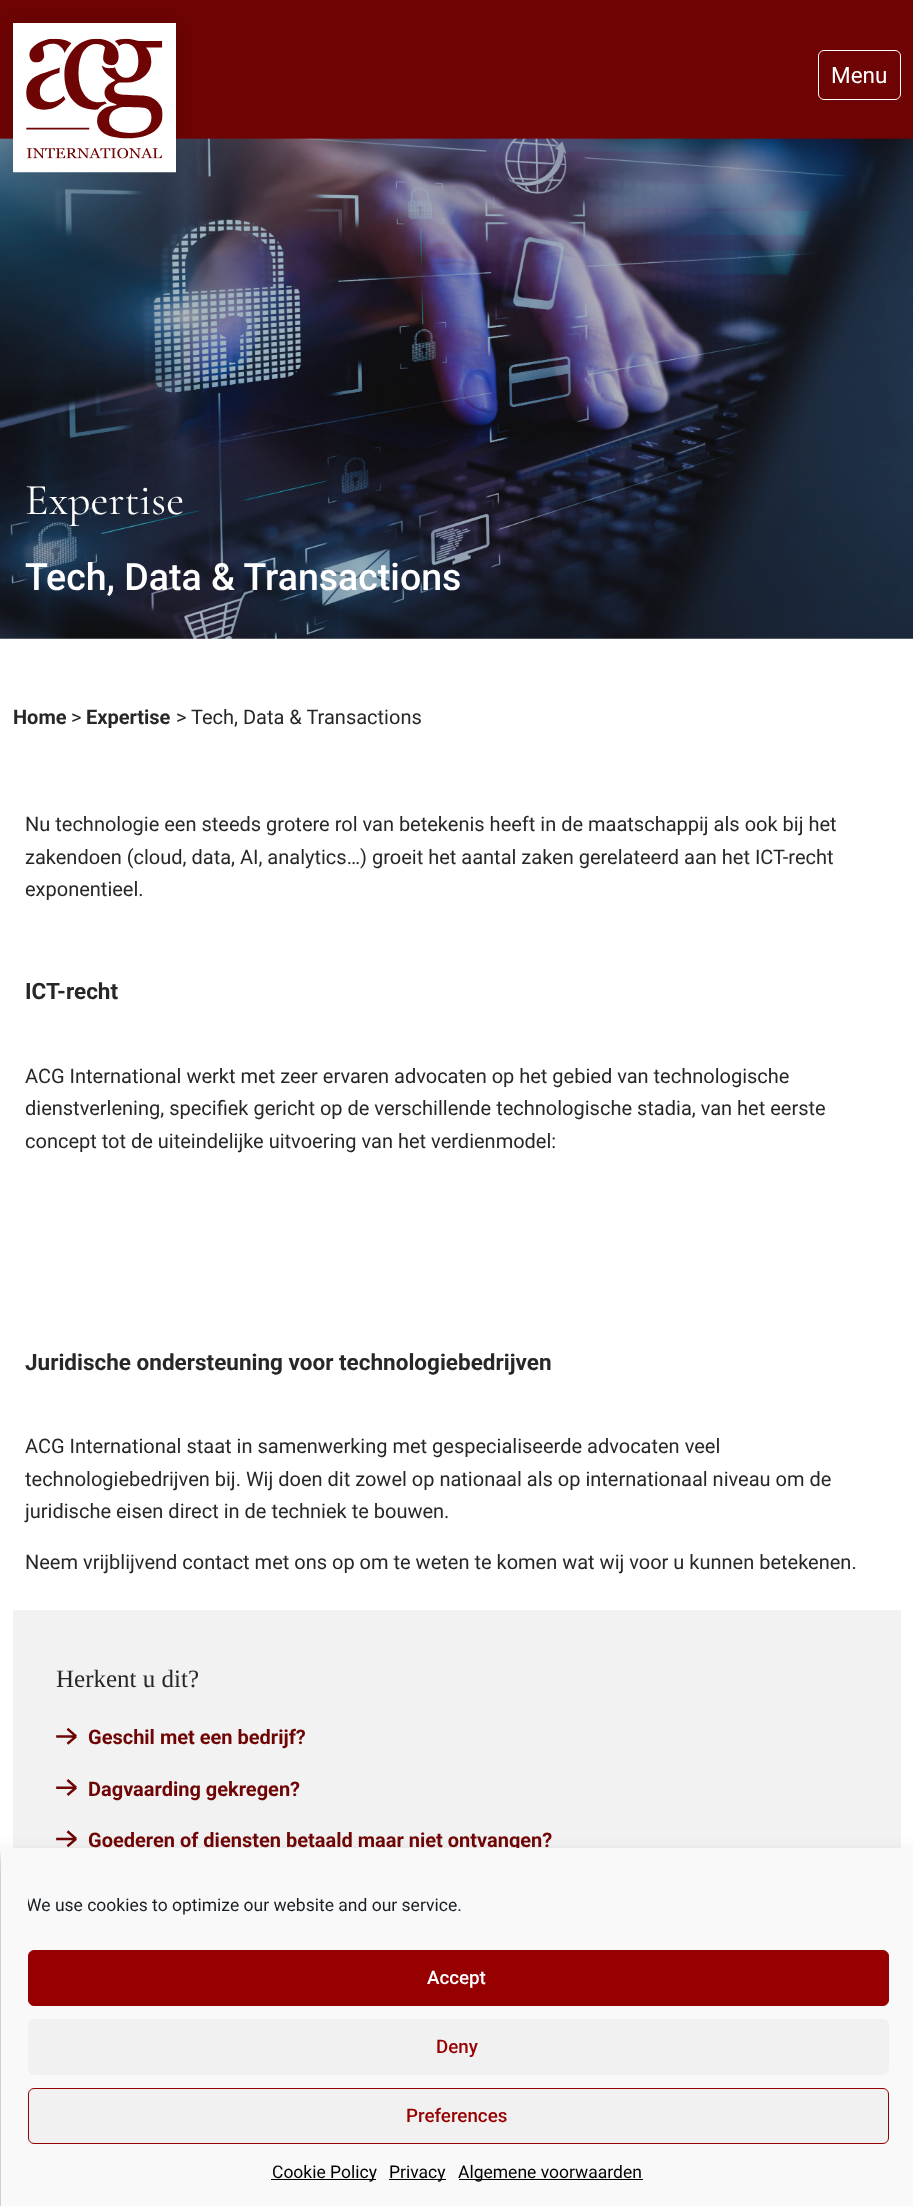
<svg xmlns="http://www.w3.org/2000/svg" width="913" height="2206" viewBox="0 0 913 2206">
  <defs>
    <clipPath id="clip1"><path d="M28 1893h861v32H28z"/></clipPath>
  </defs>
  <rect width="100%" height="100%" fill="#fff"/>
  <path d="M0 0h913v139H0z" fill="#6f0404"/>
  <image x="0" y="138" width="913" height="501" href="img/2.png"/>
  <path d="M13 23h163v150H13z" fill="#00000026" filter="blur(12.5px)"/>
  <image x="13" y="23" width="163" height="150" href="img/1.png"/>
  <rect x="818.5" y="50.5" width="82" height="49" rx="5.5" fill="none" stroke="#fff"/>
  <path d="M13 1610h888v238H13z" fill="#f2f2f2"/>
  <image x="56" y="1728" width="21" height="17" href="img/3.png"/>
  <image x="56" y="1779" width="21" height="17" href="img/4.png"/>
  <image x="56" y="1830" width="21" height="18" href="img/5.png"/>
  <path d="M1 1855h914v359H1z" fill="#0000003b" filter="blur(4px)"/>
  <path d="M1 1860h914v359H1z" fill="#00000030" filter="blur(12.5px)"/>
  <text x="831" y="83" font-family="Roboto" font-size="22.5" fill="#fff">Menu</text>
  <text x="25" y="514" font-family="Cormorant Garamond" font-size="44" fill="#fff">Expertise</text>
  <text x="25" y="590" font-family="Roboto" font-size="37.5" font-weight="500" fill="#fff">Tech, Data &amp; Transactions</text>
  <text x="13" y="724" font-family="Roboto" font-size="20" font-weight="bold" fill="#272727">Home</text>
  <text x="71" y="724" font-family="Roboto" font-size="20" fill="#272727">&gt;</text>
  <text x="86" y="724" font-family="Roboto" font-size="20" font-weight="bold" fill="#272727">Expertise</text>
  <g font-family="Roboto" font-size="20" fill="#272727">
    <text x="176" y="724">&gt; Tech, Data &amp; Transactions</text>
    <text x="25" y="831">Nu technologie een steeds grotere rol van betekenis heeft in de maatschappij als ook bij het</text>
    <text x="25" y="864">zakendoen (cloud, data, AI, analytics…) groeit het aantal zaken gerelateerd aan het ICT-recht</text>
    <text x="25" y="896">exponentieel.</text>
  </g>
  <text x="25" y="999" font-family="Roboto" font-size="22.5" font-weight="bold" fill="#272727">ICT-recht</text>
  <g font-family="Roboto" font-size="20" fill="#272727">
    <text x="25" y="1083">ACG International werkt met zeer ervaren advocaten op het gebied van technologische</text>
    <text x="25" y="1115">dienstverlening, specifiek gericht op de verschillende technologische stadia, van het eerste</text>
    <text x="25" y="1148">concept tot de uiteindelijke uitvoering van het verdienmodel:</text>
  </g>
  <text x="25" y="1370" font-family="Roboto" font-size="22.5" font-weight="bold" fill="#272727">Juridische ondersteuning voor technologiebedrijven</text>
  <g font-family="Roboto" font-size="20" fill="#272727">
    <text x="25" y="1453">ACG International staat in samenwerking met gespecialiseerde advocaten veel</text>
    <text x="25" y="1486">technologiebedrijven bij. Wij doen dit zowel op nationaal als op internationaal niveau om de</text>
    <text x="25" y="1518">juridische eisen direct in de techniek te bouwen.</text>
    <text x="25" y="1569">Neem vrijblijvend contact met ons op om te weten te komen wat wij voor u kunnen betekenen.</text>
  </g>
  <text x="56" y="1687" font-family="Liberation Serif" font-size="25" fill="#272727">Herkent u dit?</text>
  <g font-family="Roboto" font-size="20" font-weight="bold" fill="#6f0404">
    <text x="88" y="1744">Geschil met een bedrijf?</text>
    <text x="88" y="1796">Dagvaarding gekregen?</text>
    <text x="88" y="1847">Goederen of diensten betaald maar niet ontvangen?</text>
  </g>
  <path d="M1 1848h912v358H1z" fill="#f9f9f9"/>
  <g clip-path="url(#clip1)">
    <text x="26" y="1911" font-family="Roboto" font-size="17.5" fill="#191e23">We use cookies to optimize our website and our service.</text>
  </g>
  <rect x="28.5" y="1950.5" width="860" height="55" rx="5.5" fill="#970000" stroke="#970000"/>
  <text x="427" y="1984" font-family="Roboto" font-size="18.75" font-weight="500" fill="#fff">Accept</text>
  <rect x="28" y="2019" width="861" height="56" rx="6" fill="#f1f1f1"/>
  <text x="436" y="2053" font-family="Roboto" font-size="18.75" font-weight="500" fill="#970000">Deny</text>
  <rect x="28.5" y="2088.5" width="860" height="55" rx="5.5" fill="#f1f1f1" stroke="#970000"/>
  <text x="406" y="2122" font-family="Roboto" font-size="18.75" font-weight="500" fill="#970000">Preferences</text>
  <path d="M271 2179h105v1H271z" fill="#000"/>
  <text x="272" y="2178" font-family="Roboto" font-size="17.5" fill="#000">Cookie Policy</text>
  <path d="M389 2179h57v1H389z" fill="#000"/>
  <text x="389" y="2178" font-family="Roboto" font-size="17.5" fill="#000">Privacy</text>
  <path d="M459 2179h184v1H459z" fill="#000"/>
  <text x="458" y="2178" font-family="Roboto" font-size="17.5" fill="#000">Algemene voorwaarden</text>
</svg>
